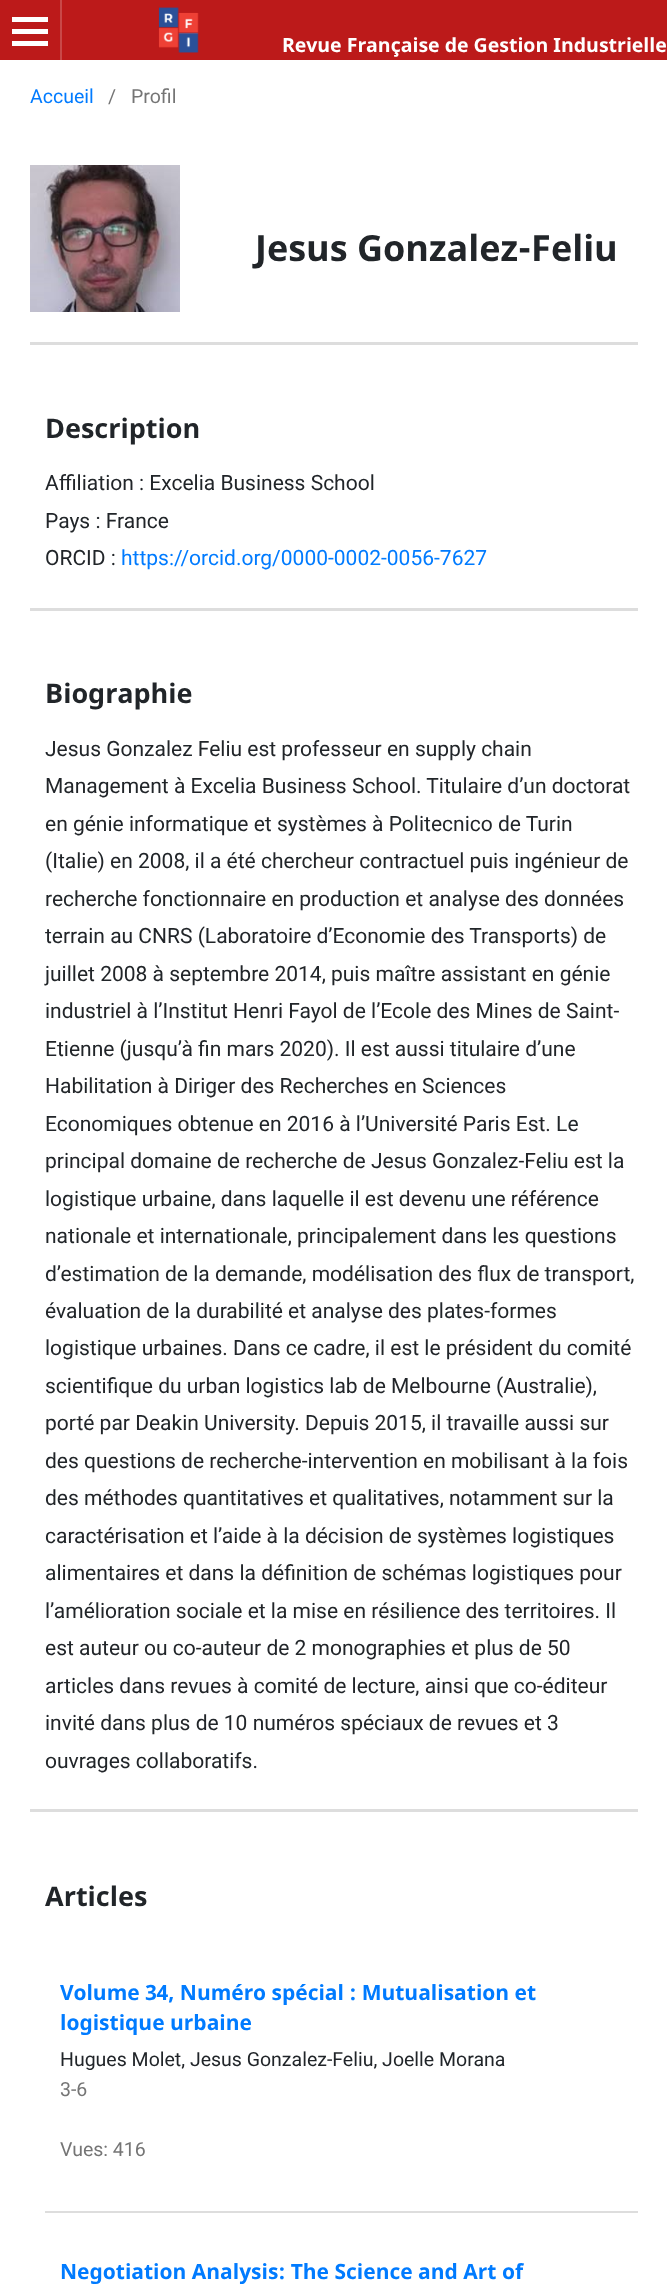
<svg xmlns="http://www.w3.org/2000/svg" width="667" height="2286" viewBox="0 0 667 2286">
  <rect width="100%" height="100%" fill="#fff"/>
  <path d="M0 0h667v60H0z" fill="#bc1a1a"/>
  <path d="M60 0h2v60H60z" fill="#c94848"/>
  <path d="M12 41h36v5H12z" fill="#fff"/>
  <path d="M12 17h36v5H12z" fill="#fff"/>
  <path d="M12 29h36v5H12z" fill="#fff"/>
  <image x="158" y="7" width="41" height="46" href="img/1.png"/>
  <image x="30" y="165" width="150" height="147" href="img/2.png"/>
  <path d="M30 342h608v3H30z" fill="#ddd"/>
  <path d="M30 608h608v3H30z" fill="#ddd"/>
  <path d="M30 1809h608v3H30z" fill="#ddd"/>
  <path d="M45 2211h593v2H45z" fill="#ddd"/>
  <text x="282" y="52" font-family="Noto Sans" font-size="19.5" font-weight="bold" fill="#fff">Revue Française de Gestion Industrielle</text>
  <text x="30" y="103" font-family="Roboto" font-size="19.5" fill="#007bff">Accueil</text>
  <g font-family="Roboto" font-size="19.5" fill="#757575">
    <text x="108" y="103">/</text>
    <text x="131" y="103">Profil</text>
  </g>
  <text x="255" y="261" font-family="Noto Sans" font-size="36" font-weight="bold" fill="#212529">Jesus Gonzalez-Feliu</text>
  <text x="45" y="438" font-family="Noto Sans" font-size="27" font-weight="bold" fill="#212529">Description</text>
  <g font-family="Roboto" font-size="21" fill="#212529">
    <text x="45" y="490">Affiliation : Excelia Business School</text>
    <text x="45" y="528">Pays : France</text>
    <text x="45" y="565">ORCID :</text>
  </g>
  <text x="121" y="565" font-family="Roboto" font-size="21" fill="#007bff">https://orcid.org/0000-0002-0056-7627</text>
  <text x="45" y="703" font-family="Noto Sans" font-size="27" font-weight="bold" fill="#212529">Biographie</text>
  <g font-family="Roboto" font-size="21" fill="#212529">
    <text x="45" y="756">Jesus Gonzalez Feliu est professeur en supply chain</text>
    <text x="45" y="793">Management à Excelia Business School. Titulaire d’un doctorat</text>
    <text x="45" y="831">en génie informatique et systèmes à Politecnico de Turin</text>
    <text x="45" y="868">(Italie) en 2008, il a été chercheur contractuel puis ingénieur de</text>
    <text x="45" y="906">recherche fonctionnaire en production et analyse des données</text>
    <text x="45" y="943">terrain au CNRS (Laboratoire d’Economie des Transports) de</text>
    <text x="45" y="981">juillet 2008 à septembre 2014, puis maître assistant en génie</text>
    <text x="45" y="1018">industriel à l’Institut Henri Fayol de l’Ecole des Mines de Saint-</text>
    <text x="45" y="1056">Etienne (jusqu’à fin mars 2020). Il est aussi titulaire d’une</text>
    <text x="45" y="1093">Habilitation à Diriger des Recherches en Sciences</text>
    <text x="45" y="1131">Economiques obtenue en 2016 à l’Université Paris Est. Le</text>
    <text x="45" y="1168">principal domaine de recherche de Jesus Gonzalez-Feliu est la</text>
    <text x="45" y="1206">logistique urbaine, dans laquelle il est devenu une référence</text>
    <text x="45" y="1243">nationale et internationale, principalement dans les questions</text>
    <text x="45" y="1281">d’estimation de la demande, modélisation des flux de transport,</text>
    <text x="45" y="1318">évaluation de la durabilité et analyse des plates-formes</text>
    <text x="45" y="1355">logistique urbaines. Dans ce cadre, il est le président du comité</text>
    <text x="45" y="1393">scientifique du urban logistics lab de Melbourne (Australie),</text>
    <text x="45" y="1430">porté par Deakin University. Depuis 2015, il travaille aussi sur</text>
    <text x="45" y="1468">des questions de recherche-intervention en mobilisant à la fois</text>
    <text x="45" y="1505">des méthodes quantitatives et qualitatives, notamment sur la</text>
    <text x="45" y="1543">caractérisation et l’aide à la décision de systèmes logistiques</text>
    <text x="45" y="1580">alimentaires et dans la définition de schémas logistiques pour</text>
    <text x="45" y="1618">l’amélioration sociale et la mise en résilience des territoires. Il</text>
    <text x="45" y="1655">est auteur ou co-auteur de 2 monographies et plus de 50</text>
    <text x="45" y="1693">articles dans revues à comité de lecture, ainsi que co-éditeur</text>
    <text x="45" y="1730">invité dans plus de 10 numéros spéciaux de revues et 3</text>
    <text x="45" y="1768">ouvrages collaboratifs.</text>
  </g>
  <text x="45" y="1906" font-family="Noto Sans" font-size="27" font-weight="bold" fill="#212529">Articles</text>
  <g font-family="Noto Sans" font-size="21" font-weight="bold" fill="#007bff">
    <text x="60" y="2000">Volume 34, Numéro spécial : Mutualisation et</text>
    <text x="60" y="2030">logistique urbaine</text>
  </g>
  <text x="60" y="2066" font-family="Roboto" font-size="19.5" fill="#212529">Hugues Molet, Jesus Gonzalez-Feliu, Joelle Morana</text>
  <g font-family="Roboto" font-size="19.5" fill="#757575">
    <text x="60" y="2096">3-6</text>
    <text x="60" y="2156">Vues: 416</text>
  </g>
  <text x="60" y="2279" font-family="Noto Sans" font-size="21" font-weight="bold" fill="#007bff">Negotiation Analysis: The Science and Art of</text>
</svg>
